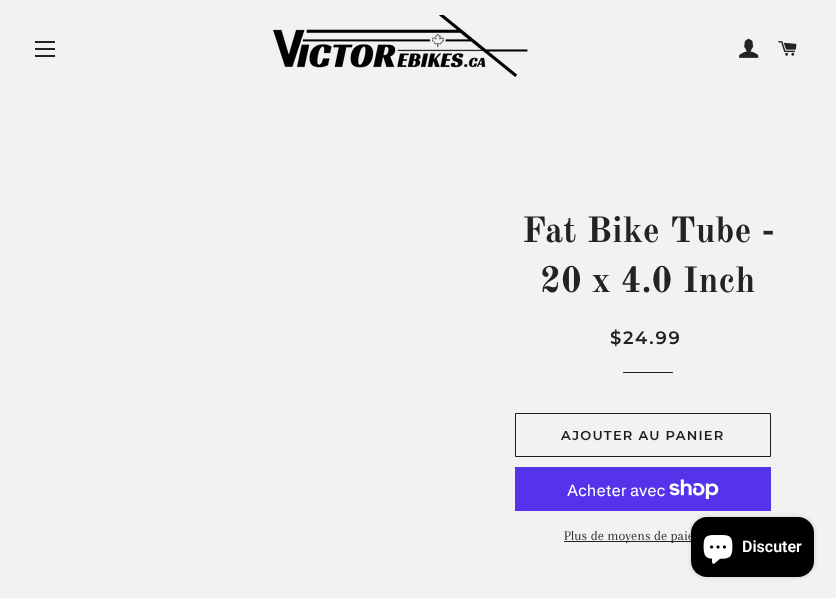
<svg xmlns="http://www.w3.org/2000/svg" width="836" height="598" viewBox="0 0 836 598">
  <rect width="100%" height="100%" fill="#f2f2f2"/>
  <path d="M35 41h20v2H35z" fill="#222323"/>
  <path d="M35 48h20v2H35z" fill="#222323"/>
  <path d="M35 55h20v2H35z" fill="#222323"/>
  <image x="273" y="15" width="255" height="62" href="img/1.png"/>
  <image x="739" y="38" width="20" height="20" href="img/2.png"/>
  <image x="778" y="41" width="19" height="15" href="img/3.png"/>
  <path d="M623 372h50v1H623z" fill="#1c1d1d"/>
  <path d="M515.5 413.5h255v43H515.5z" fill="none" stroke="#1c1d1d"/>
  <path d="M515 467h256v44H515z" fill="#5433eb"/>
  <image x="669" y="479" width="50" height="20" href="img/4.png"/>
  <path d="M564 541h127v1H564z" fill="#222323"/>
  <rect x="691" y="517" width="123" height="60" rx="16" fill="#00000026" filter="blur(2.5px)"/>
  <g font-family="Old Standard TT" font-size="36" font-weight="bold" fill="#222323">
    <text x="522" y="242">Fat Bike Tube -</text>
    <text x="540" y="292">20 x 4.0 Inch</text>
  </g>
  <text x="610" y="344" font-family="Montserrat" font-size="18" font-weight="600" letter-spacing="1.75" fill="#222323">$24.99</text>
  <text x="561" y="440" font-family="Montserrat" font-size="13" font-weight="600" letter-spacing="1.25" fill="#1c1d1d">AJOUTER AU PANIER</text>
  <text x="567" y="496" font-family="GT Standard" font-size="16" fill="#fff">Acheter avec</text>
  <text x="564" y="540" font-family="Arapey" font-size="14" fill="#222323">Plus de moyens de paie</text>
  <rect x="691" y="517" width="123" height="60" rx="16" fill="#000"/>
  <image x="703" y="535" width="30" height="29" href="img/5.png"/>
  <text x="742" y="552" font-family="Roboto" font-size="16" font-weight="600" fill="#fff">Discuter</text>
</svg>
